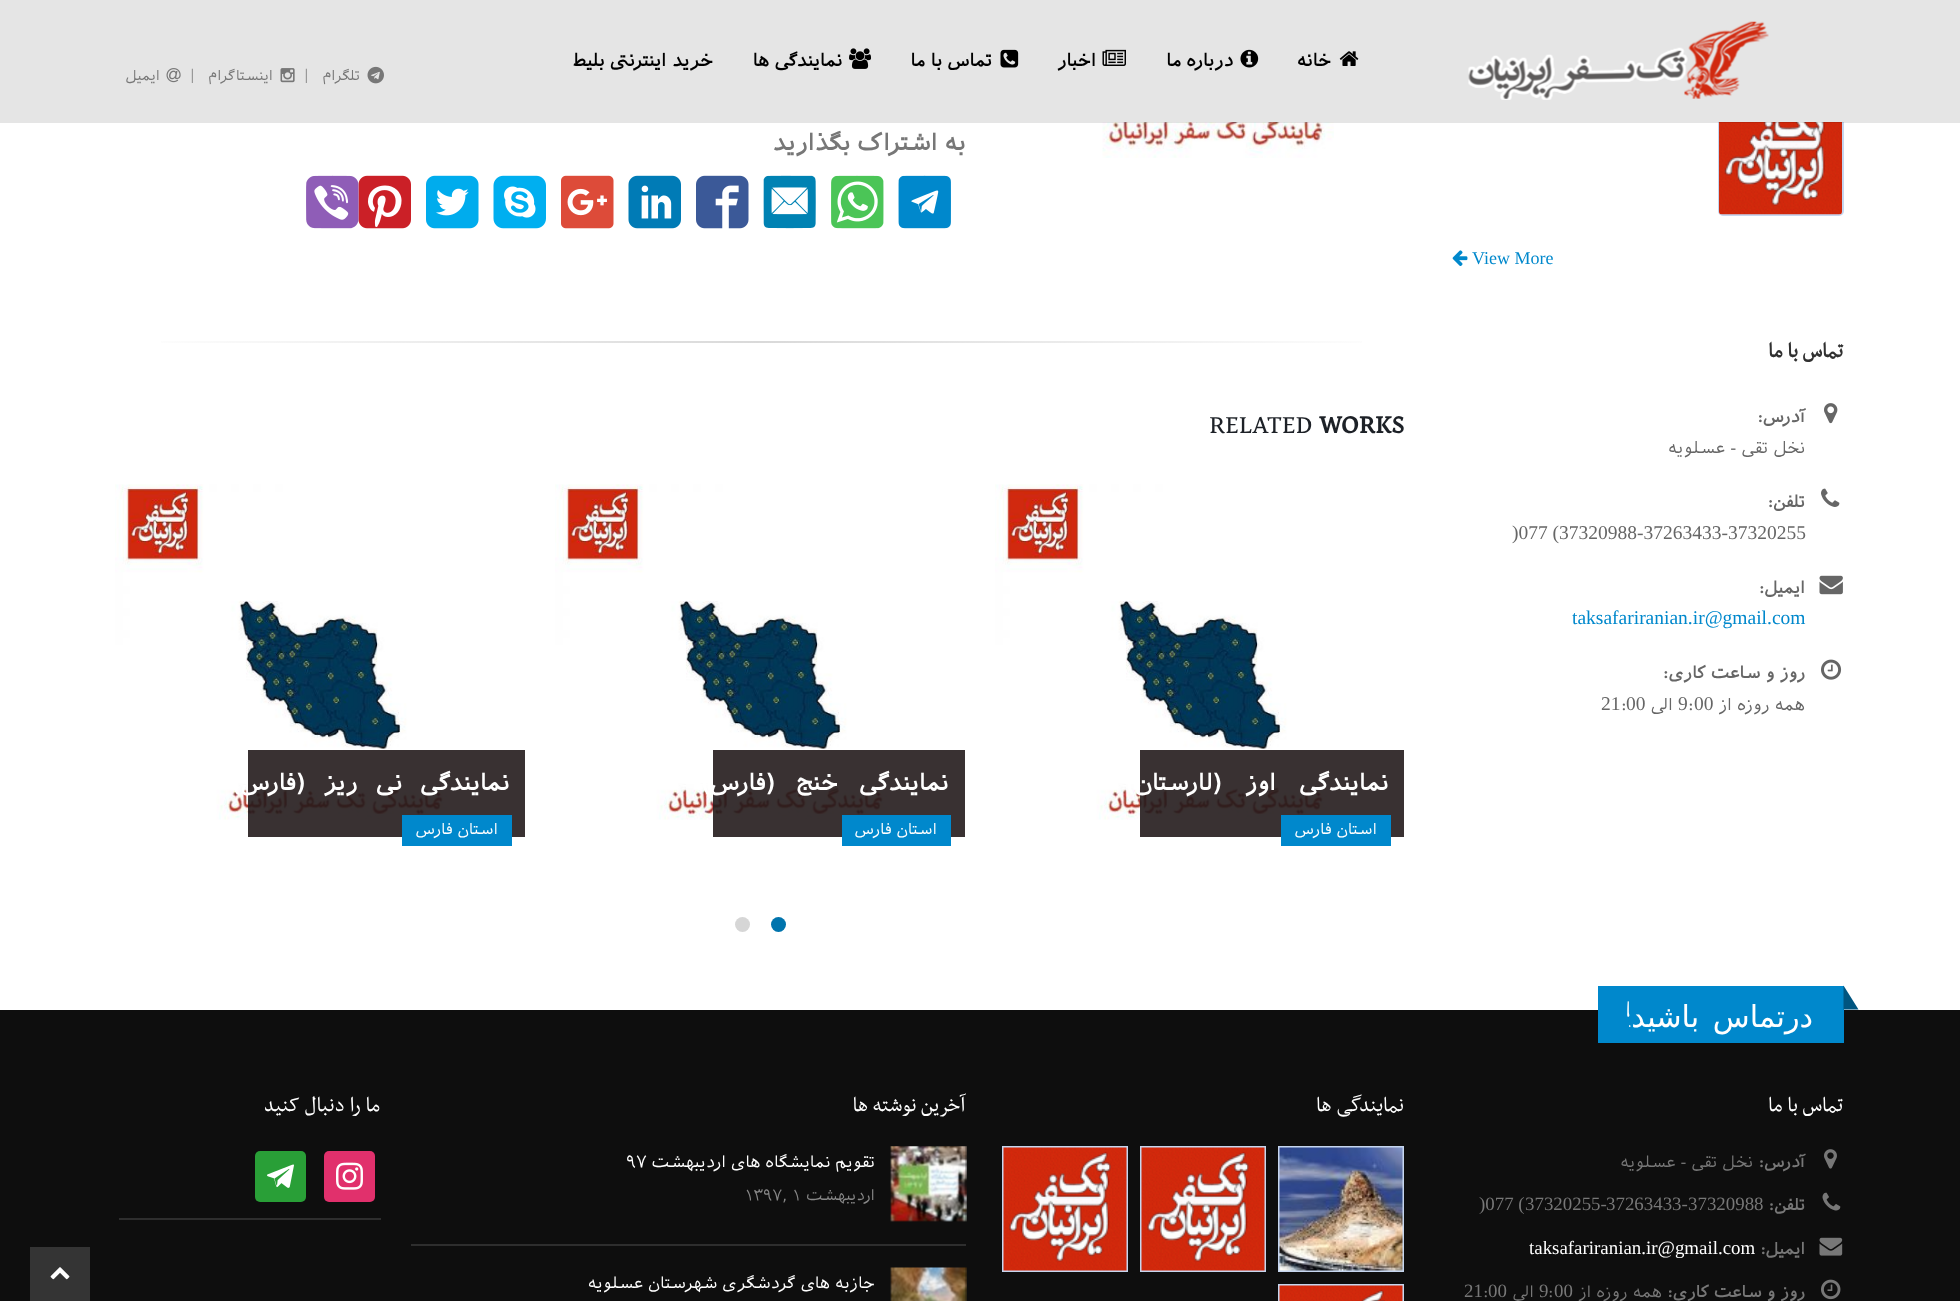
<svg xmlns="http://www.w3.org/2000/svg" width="1960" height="1301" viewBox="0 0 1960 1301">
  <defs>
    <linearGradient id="g1" gradientUnits="userSpaceOnUse" x1="1404" y1="341" x2="119" y2="341"><stop offset="0" stop-color="#fff"/><stop offset="0.5" stop-color="#d9d9d9"/><stop offset="1" stop-color="#fff"/></linearGradient>
  </defs>
  <rect width="100%" height="100%" fill="#fff"/>
  <rect x="1719" y="91" width="124" height="124" rx="4" fill="none" stroke="#c6d6ef" stroke-width="2"/>
  <image x="1719" y="122" width="123" height="93" href="img/10.png"/>
  <image x="1102" y="122" width="232" height="36" href="img/16.png"/>
  <path d="M0 122V123H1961V2H1960V122Z" fill="#0000001a"/>
  <path d="M0 0h1960v122H0z" fill="#e5e5e5"/>
  <image x="1468" y="21" width="301" height="79" href="img/1.png"/>
  <image x="1339" y="51" width="20" height="15" href="img/2.png"/>
  <image x="1240" y="49" width="19" height="19" href="img/3.png"/>
  <image x="1102" y="49" width="24" height="17" href="img/4.png"/>
  <image x="1000" y="49" width="19" height="19" href="img/5.png"/>
  <image x="849" y="48" width="22" height="21" href="img/6.png"/>
  <image x="367" y="66" width="17" height="18" href="img/7.png"/>
  <image x="280" y="68" width="15" height="15" href="img/8.png"/>
  <image x="166" y="68" width="15" height="15" href="img/9.png"/>
  <image x="1452" y="250" width="16" height="16" href="img/11.png"/>
  <image x="1824" y="403" width="14" height="21" href="img/12.png"/>
  <image x="1821" y="488" width="19" height="19" href="img/13.png"/>
  <image x="1819" y="575" width="24" height="20" href="img/14.png"/>
  <image x="1821" y="659" width="21" height="21" href="img/15.png"/>
  <image x="898" y="175" width="53" height="54" href="img/17.png"/>
  <image x="831" y="175" width="53" height="54" href="img/18.png"/>
  <image x="763" y="175" width="53" height="54" href="img/19.png"/>
  <image x="696" y="175" width="53" height="54" href="img/20.png"/>
  <image x="628" y="175" width="53" height="54" href="img/21.png"/>
  <image x="561" y="175" width="53" height="54" href="img/22.png"/>
  <image x="493" y="175" width="53" height="54" href="img/23.png"/>
  <image x="426" y="175" width="53" height="54" href="img/24.png"/>
  <image x="358" y="175" width="53" height="54" href="img/25.png"/>
  <image x="306" y="175" width="53" height="54" href="img/26.png"/>
  <path d="M161 341h1201v2H161z" fill="url(#g1)"/>
  <image x="995" y="484" width="335" height="336" href="img/27.png"/>
  <path d="M1140 750h264v87H1140z" fill="#241b1ce6"/>
  <path d="M1281 815h110v31H1281z" fill="#08c"/>
  <image x="555" y="484" width="335" height="336" href="img/27.png"/>
  <path d="M713 750h252v87H713z" fill="#241b1ce6"/>
  <path d="M842 815h109v31H842z" fill="#08c"/>
  <image x="115" y="484" width="335" height="336" href="img/28.png"/>
  <path d="M248 750h277v87H248z" fill="#241b1ce6"/>
  <path d="M402 815h110v31H402z" fill="#08c"/>
  <circle cx="778.5" cy="924.5" r="7.5" fill="#0074ad"/>
  <circle cx="742.5" cy="924.5" r="7.5" fill="#d6d6d6"/>
  <path d="M0 1010h1960v291H0z" fill="#0e0e0e"/>
  <path d="M1598 986h246v57H1598z" fill="#08c"/>
  <path d="M1843.5 1009.5V985.5L1858.5 1009.5Z" fill="#005580"/>
  <image x="1824" y="1149" width="13" height="20" href="img/29.png"/>
  <image x="1822" y="1192" width="19" height="19" href="img/30.png"/>
  <image x="1819" y="1237" width="24" height="19" href="img/31.png"/>
  <image x="1821" y="1279" width="20" height="21" href="img/32.png"/>
  <path d="M1279 1147h124v124H1279z" fill="none" stroke="#c6d6ef" stroke-width="2"/>
  <image x="1279" y="1147" width="124" height="124" href="img/33.png"/>
  <path d="M1141 1147h124v124H1141z" fill="none" stroke="#c6d6ef" stroke-width="2"/>
  <image x="1141" y="1147" width="124" height="124" href="img/34.png"/>
  <path d="M1003 1147h124v124H1003z" fill="none" stroke="#c6d6ef" stroke-width="2"/>
  <image x="1003" y="1147" width="124" height="124" href="img/34.png"/>
  <path d="M1279 1285h124v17H1279z" fill="none" stroke="#c6d6ef" stroke-width="2"/>
  <image x="1279" y="1285" width="124" height="16" href="img/35.png"/>
  <image x="890" y="1146" width="77" height="76" href="img/36.png"/>
  <path d="M411 1244h555v2H411z" fill="#2e2e2e"/>
  <image x="890" y="1267" width="77" height="34" href="img/37.png"/>
  <path d="M119 1218h262v2H119z" fill="#2e2e2e"/>
  <rect x="324" y="1151" width="51" height="51" rx="5" fill="#e1306c"/>
  <image x="336" y="1162" width="27" height="28" href="img/38.png"/>
  <rect x="255" y="1151" width="51" height="51" rx="5" fill="#299f37"/>
  <image x="267" y="1164" width="27" height="24" href="img/39.png"/>
  <path d="M30 1247h60v54H30z" fill="#343434"/>
  <image x="50" y="1267" width="20" height="13" href="img/40.png"/>
  <g font-family="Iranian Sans" font-size="20.5" font-weight="bold" direction="rtl" fill="#000">
    <text x="1331" y="66">خانه</text>
    <text x="1233" y="66">درباره</text>
    <text x="1181" y="66">ما</text>
    <text x="1096" y="66">اخبار</text>
    <text x="992" y="66">تماس با ما</text>
    <text x="842" y="66">نمایندگی ها</text>
    <text x="713" y="66">خرید اینترنتی بلیط</text>
  </g>
  <text x="360" y="80" font-family="Iranian Sans" font-size="16.5" direction="rtl" fill="#777">تلگرام</text>
  <text x="304" y="79" font-family="Iranian Sans" font-size="16.5" fill="#999">|</text>
  <text x="273" y="80" font-family="Iranian Sans" font-size="16.5" direction="rtl" fill="#777">اینستاگرام</text>
  <text x="190" y="79" font-family="Iranian Sans" font-size="16.5" fill="#999">|</text>
  <text x="160" y="80" font-family="Iranian Sans" font-size="16.5" direction="rtl" fill="#777">ایمیل</text>
  <text x="1472" y="264" font-family="Liberation Serif" font-size="18" fill="#08c">View More</text>
  <text x="1843" y="357" font-family="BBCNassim" font-size="24" font-weight="bold" direction="rtl" fill="#313131">تماس با ما</text>
  <text x="1805" y="422" font-family="Iranian Sans" font-size="19.5" font-weight="bold" direction="rtl" fill="#666">آدرس:</text>
  <text x="1805" y="453" font-family="Iranian Sans" font-size="19.5" direction="rtl" fill="#666">نخل تقی - عسلویه</text>
  <text x="1805" y="507" font-family="Iranian Sans" font-size="19.5" font-weight="bold" direction="rtl" fill="#666">تلفن:</text>
  <g font-family="Liberation Serif" font-size="19.5" fill="#666">
    <text x="1559" y="539">37320988-37263433-37320255</text>
    <text x="1512" y="539">)077 (</text>
  </g>
  <text x="1805" y="593" font-family="Iranian Sans" font-size="19.5" font-weight="bold" direction="rtl" fill="#666">ایمیل:</text>
  <text x="1572" y="624" font-family="Liberation Serif" font-size="19.5" fill="#08c">taksafariranian.ir@gmail.com</text>
  <text x="1805" y="678" font-family="Iranian Sans" font-size="19.5" font-weight="bold" direction="rtl" fill="#666">روز و ساعت کاری:</text>
  <text x="1805" y="710" font-family="Iranian Sans" font-size="19.5" direction="rtl" fill="#666">همه روزه از</text>
  <text x="1694" y="710" font-family="Liberation Serif" font-size="19.5" fill="#666">00</text>
  <text x="1688" y="710" font-family="Iranian Sans" font-size="19.5" fill="#666">:</text>
  <text x="1678" y="710" font-family="Liberation Serif" font-size="19.5" fill="#666">9</text>
  <text x="1673" y="710" font-family="Iranian Sans" font-size="19.5" direction="rtl" fill="#666">الی</text>
  <text x="1626" y="710" font-family="Liberation Serif" font-size="19.5" fill="#666">00</text>
  <text x="1621" y="710" font-family="Iranian Sans" font-size="19.5" fill="#666">:</text>
  <text x="1601" y="710" font-family="Liberation Serif" font-size="19.5" fill="#666">21</text>
  <text x="965" y="150" font-family="Iranian Sans" font-size="27" font-weight="bold" direction="rtl" fill="#777">به اشتراک بگذارید</text>
  <text x="1319" y="433" font-family="BBCNassim" font-size="30" font-weight="bold" fill="#1d2127">WORKS</text>
  <text x="1209" y="433" font-family="BBCNassim" font-size="30" fill="#1d2127">RELATED</text>
  <text x="1388" y="790" word-spacing="16" font-family="Iranian Sans" font-size="27" font-weight="bold" letter-spacing="-1.5" direction="rtl" fill="#fff">نمایندگی اوز (لارستان)</text>
  <text x="1377" y="834" font-family="Iranian Sans" font-size="18" direction="rtl" fill="#fff">استان فارس</text>
  <text x="948" y="790" word-spacing="14" font-family="Iranian Sans" font-size="27" font-weight="bold" letter-spacing="-1.5" direction="rtl" fill="#fff">نمایندگی خنج (فارس)</text>
  <text x="937" y="834" font-family="Iranian Sans" font-size="18" direction="rtl" fill="#fff">استان فارس</text>
  <text x="509" y="790" word-spacing="11" font-family="Iranian Sans" font-size="27" font-weight="bold" letter-spacing="-1.5" direction="rtl" fill="#fff">نمایندگی نی ریز (فارس)</text>
  <text x="498" y="834" font-family="Iranian Sans" font-size="18" direction="rtl" fill="#fff">استان فارس</text>
  <text x="1813" y="1027" word-spacing="4" font-family="DejaVu Sans" font-size="30.25" direction="rtl" fill="#fff">درتماس باشید</text>
  <text x="1631" y="1027" font-family="Shadows Into Light" font-size="30.25" font-weight="300" direction="rtl" fill="#fff">!</text>
  <text x="1843" y="1111" font-family="BBCNassim" font-size="24" direction="rtl" fill="#fff">تماس با ما</text>
  <text x="1805" y="1167" font-family="Iranian Sans" font-size="18.9" font-weight="bold" direction="rtl" fill="#777">آدرس:</text>
  <text x="1753" y="1167" font-family="Iranian Sans" font-size="18.9" direction="rtl" fill="#777">نخل تقی - عسلویه</text>
  <text x="1805" y="1210" font-family="Iranian Sans" font-size="18.9" font-weight="bold" direction="rtl" fill="#777">تلفن:</text>
  <g font-family="Liberation Serif" font-size="18.9" fill="#777">
    <text x="1688" y="1210">37320988</text>
    <text x="1606" y="1210">37263433-</text>
    <text x="1525" y="1210">37320255-</text>
    <text x="1479" y="1210">)077 (</text>
  </g>
  <text x="1805" y="1254" font-family="Iranian Sans" font-size="18.9" font-weight="bold" direction="rtl" fill="#777">ایمیل:</text>
  <text x="1529" y="1254" font-family="Liberation Serif" font-size="18.9" fill="#fff">taksafariranian.ir@gmail.com</text>
  <text x="1805" y="1297" font-family="Iranian Sans" font-size="18.9" font-weight="bold" direction="rtl" fill="#777">روز و ساعت کاری:</text>
  <text x="1662" y="1297" font-family="Iranian Sans" font-size="18.9" direction="rtl" fill="#777">همه روزه از</text>
  <text x="1554" y="1297" font-family="Liberation Serif" font-size="18.9" fill="#777">00</text>
  <text x="1548" y="1297" font-family="Iranian Sans" font-size="18.9" fill="#777">:</text>
  <text x="1539" y="1297" font-family="Liberation Serif" font-size="18.9" fill="#777">9</text>
  <text x="1534" y="1297" font-family="Iranian Sans" font-size="18.9" direction="rtl" fill="#777">الی</text>
  <text x="1488" y="1297" font-family="Liberation Serif" font-size="18.9" fill="#777">00</text>
  <text x="1483" y="1297" font-family="Iranian Sans" font-size="18.9" fill="#777">:</text>
  <text x="1464" y="1297" font-family="Liberation Serif" font-size="18.9" fill="#777">21</text>
  <g font-family="BBCNassim" font-size="24" direction="rtl" fill="#fff">
    <text x="1404" y="1111">نمایندگی ها</text>
    <text x="965" y="1111">آخرین نوشته ها</text>
  </g>
  <text x="875" y="1167" font-family="Iranian Sans" font-size="18.9" direction="rtl" fill="#fff">تقویم نمایشگاه های اردیبهشت</text>
  <text x="626" y="1167" font-family="Iranian Sans" font-size="18.9" fill="#fff">۹۷</text>
  <text x="875" y="1200" font-family="Iranian Sans" font-size="17.5" direction="rtl" fill="#888">اردیبهشت</text>
  <text x="744" y="1200" font-family="Iranian Sans" font-size="17.5" fill="#888">۱۳۹۷, ۱</text>
  <text x="875" y="1288" font-family="Iranian Sans" font-size="18.9" direction="rtl" fill="#fff">جازبه های گردشگری شهرستان عسلویه</text>
  <text x="380" y="1111" font-family="BBCNassim" font-size="24" direction="rtl" fill="#fff">ما را دنبال کنید</text>
</svg>
